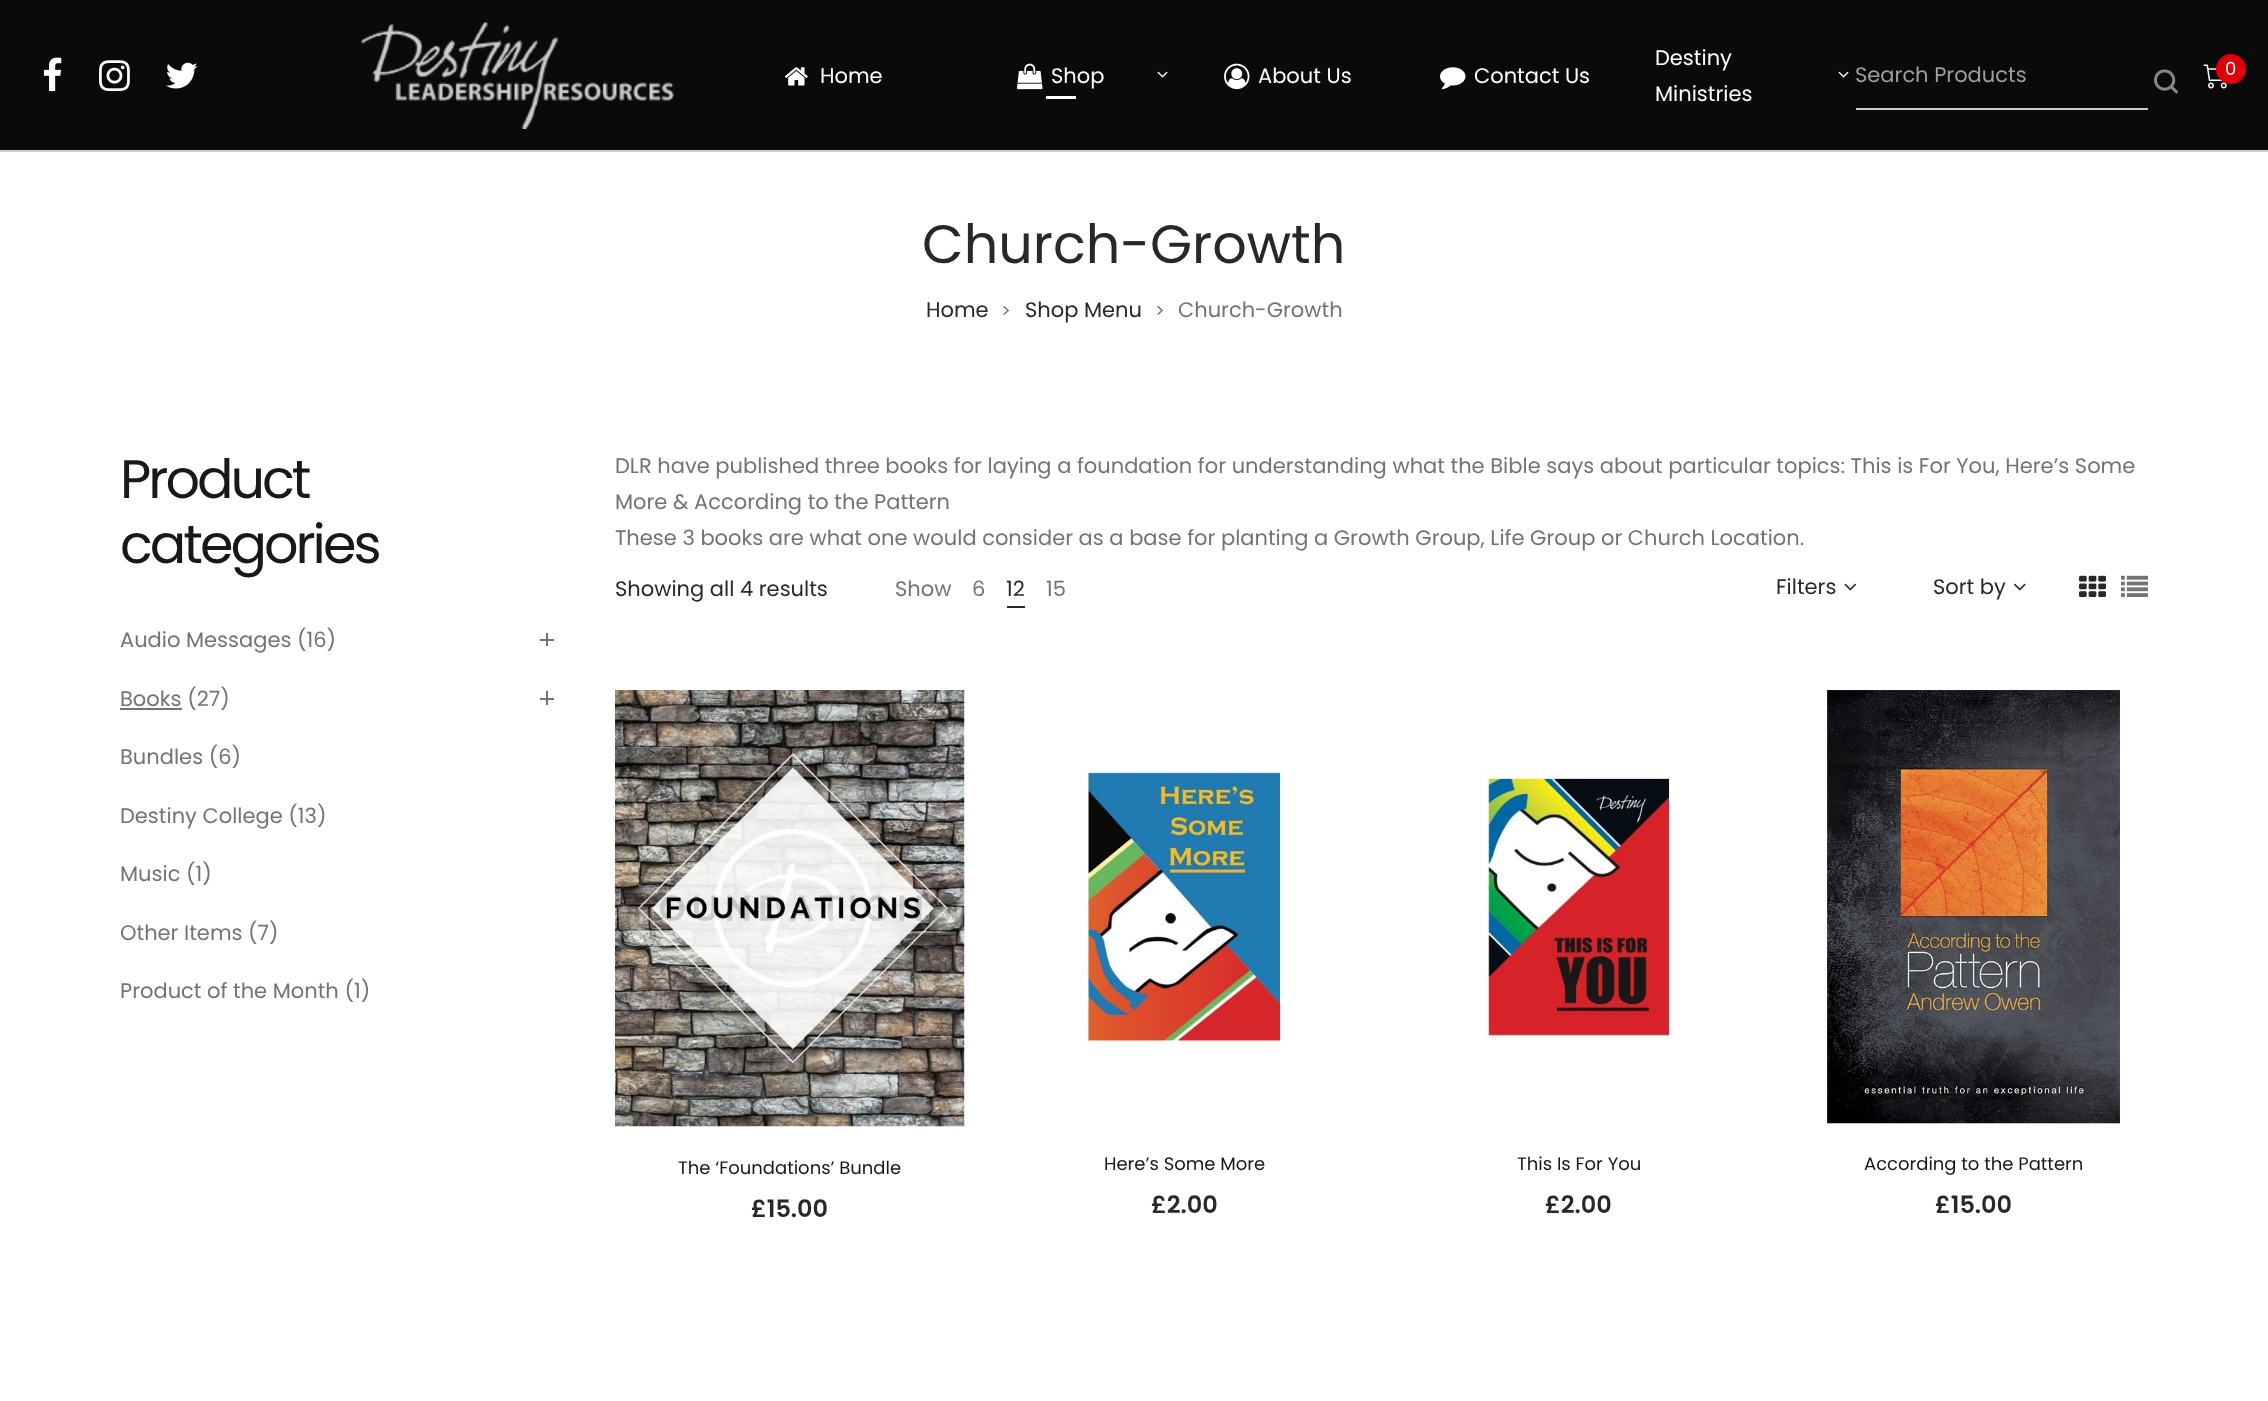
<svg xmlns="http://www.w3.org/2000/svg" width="2268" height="1401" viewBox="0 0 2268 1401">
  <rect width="100%" height="100%" fill="#fff"/>
  <path d="M0 0h2268v150H0z" fill="#0a0a0a"/>
  <image x="43" y="57" width="19" height="35" href="img/1.png"/>
  <image x="99" y="60" width="31" height="32" href="img/2.png"/>
  <image x="166" y="62" width="32" height="27" href="img/3.png"/>
  <image x="361" y="22" width="313" height="107" href="img/4.png"/>
  <image x="784" y="67" width="24" height="19" href="img/5.png"/>
  <image x="1017" y="63" width="26" height="27" href="img/6.png"/>
  <path d="M1046 96h30v3H1046z" fill="#fff"/>
  <image x="1157" y="71" width="11" height="7" href="img/7.png"/>
  <image x="1224" y="63" width="26" height="27" href="img/8.png"/>
  <image x="1440" y="67" width="26" height="23" href="img/9.png"/>
  <image x="1838" y="71" width="11" height="7" href="img/7.png"/>
  <path d="M1856 108h292v2H1856z" fill="#cdcdcd"/>
  <image x="2154" y="69" width="24" height="25" href="img/10.png"/>
  <image x="2203" y="64" width="24" height="25" href="img/11.png"/>
  <circle cx="2231" cy="69" r="15" fill="#dc0109"/>
  <path d="M0 150h2268v2H0z" fill="#cecece"/>
  <path d="M540 639h14v2H540z" fill="#737373"/>
  <path d="M546 633h2v13H546z" fill="#737373"/>
  <path d="M120 708h62v2H120z" fill="#737373"/>
  <path d="M540 698h14v2H540z" fill="#737373"/>
  <path d="M546 691h2v14H546z" fill="#737373"/>
  <path d="M1007 606h18v2H1007z" fill="#282828"/>
  <image x="1844" y="583" width="13" height="8" href="img/12.png"/>
  <image x="2013" y="583" width="13" height="8" href="img/13.png"/>
  <image x="2079" y="575" width="27" height="22" href="img/14.png"/>
  <image x="2121" y="575" width="27" height="22" href="img/15.png"/>
  <image x="615" y="690" width="350" height="437" href="img/16.png"/>
  <image x="1079" y="771" width="203" height="276" href="img/17.png"/>
  <image x="1485" y="770" width="190" height="267" href="img/18.png"/>
  <image x="1824" y="690" width="296" height="434" href="img/19.png"/>
  <g font-family="Poppins" font-size="21" fill="#fff">
    <text x="820" y="83">Home</text>
    <text x="1051" y="83">Shop</text>
    <text x="1258" y="83">About Us</text>
    <text x="1474" y="83">Contact Us</text>
    <text x="1655" y="65">Destiny</text>
    <text x="1655" y="101">Ministries</text>
  </g>
  <text x="1855" y="82" font-family="Poppins" font-size="21" fill="#9e9e9e">Search Products</text>
  <text x="2225" y="75" font-family="Poppins" font-size="18" fill="#fff">0</text>
  <text x="922" y="263" font-family="Poppins" font-size="54" fill="#282828">Church-Growth</text>
  <text x="926" y="317" font-family="Poppins" font-size="21" fill="#282828">Home</text>
  <text x="1001" y="317" font-family="Poppins" font-size="18" fill="#737373">&gt;</text>
  <text x="1025" y="317" font-family="Poppins" font-size="21" fill="#282828">Shop Menu</text>
  <text x="1155" y="317" font-family="Poppins" font-size="18" fill="#737373">&gt;</text>
  <text x="1178" y="317" font-family="Poppins" font-size="21" fill="#737373">Church-Growth</text>
  <g font-family="Poppins" font-size="54" letter-spacing="-3" fill="#181818">
    <text x="120" y="498">Product</text>
    <text x="120" y="563">categories</text>
  </g>
  <g font-family="Poppins" font-size="21" fill="#737373">
    <text x="120" y="647">Audio Messages (16)</text>
    <text x="120" y="706">Books (27)</text>
    <text x="120" y="764">Bundles (6)</text>
    <text x="120" y="823">Destiny College (13)</text>
    <text x="120" y="881">Music (1)</text>
    <text x="120" y="940">Other Items (7)</text>
    <text x="120" y="998">Product of the Month (1)</text>
    <text x="615" y="473">DLR have published three books for laying a foundation for understanding what the Bible says about particular topics: This is For You, Here’s Some</text>
    <text x="615" y="509">More &amp; According to the Pattern</text>
    <text x="615" y="545">These 3 books are what one would consider as a base for planting a Growth Group, Life Group or Church Location.</text>
  </g>
  <text x="615" y="596" font-family="Poppins" font-size="21" fill="#282828">Showing all 4 results</text>
  <g font-family="Poppins" font-size="21" fill="#737373">
    <text x="895" y="596">Show</text>
    <text x="972" y="596">6</text>
  </g>
  <text x="1006" y="596" font-family="Poppins" font-size="21" fill="#282828">12</text>
  <text x="1046" y="596" font-family="Poppins" font-size="21" fill="#737373">15</text>
  <g font-family="Poppins" font-size="21" fill="#282828">
    <text x="1776" y="594">Filters</text>
    <text x="1933" y="594">Sort by</text>
  </g>
  <text x="678" y="1174" font-family="Poppins" font-size="18" fill="#181818">The ‘Foundations’ Bundle</text>
  <text x="751" y="1217" font-family="Poppins" font-size="24" font-weight="600" fill="#282828">£15.00</text>
  <text x="1104" y="1170" font-family="Poppins" font-size="18" fill="#181818">Here’s Some More</text>
  <text x="1151" y="1213" font-family="Poppins" font-size="24" font-weight="600" fill="#282828">£2.00</text>
  <text x="1517" y="1170" font-family="Poppins" font-size="18" fill="#181818">This Is For You</text>
  <text x="1545" y="1213" font-family="Poppins" font-size="24" font-weight="600" fill="#282828">£2.00</text>
  <text x="1864" y="1170" font-family="Poppins" font-size="18" fill="#181818">According to the Pattern</text>
  <text x="1935" y="1213" font-family="Poppins" font-size="24" font-weight="600" fill="#282828">£15.00</text>
</svg>
